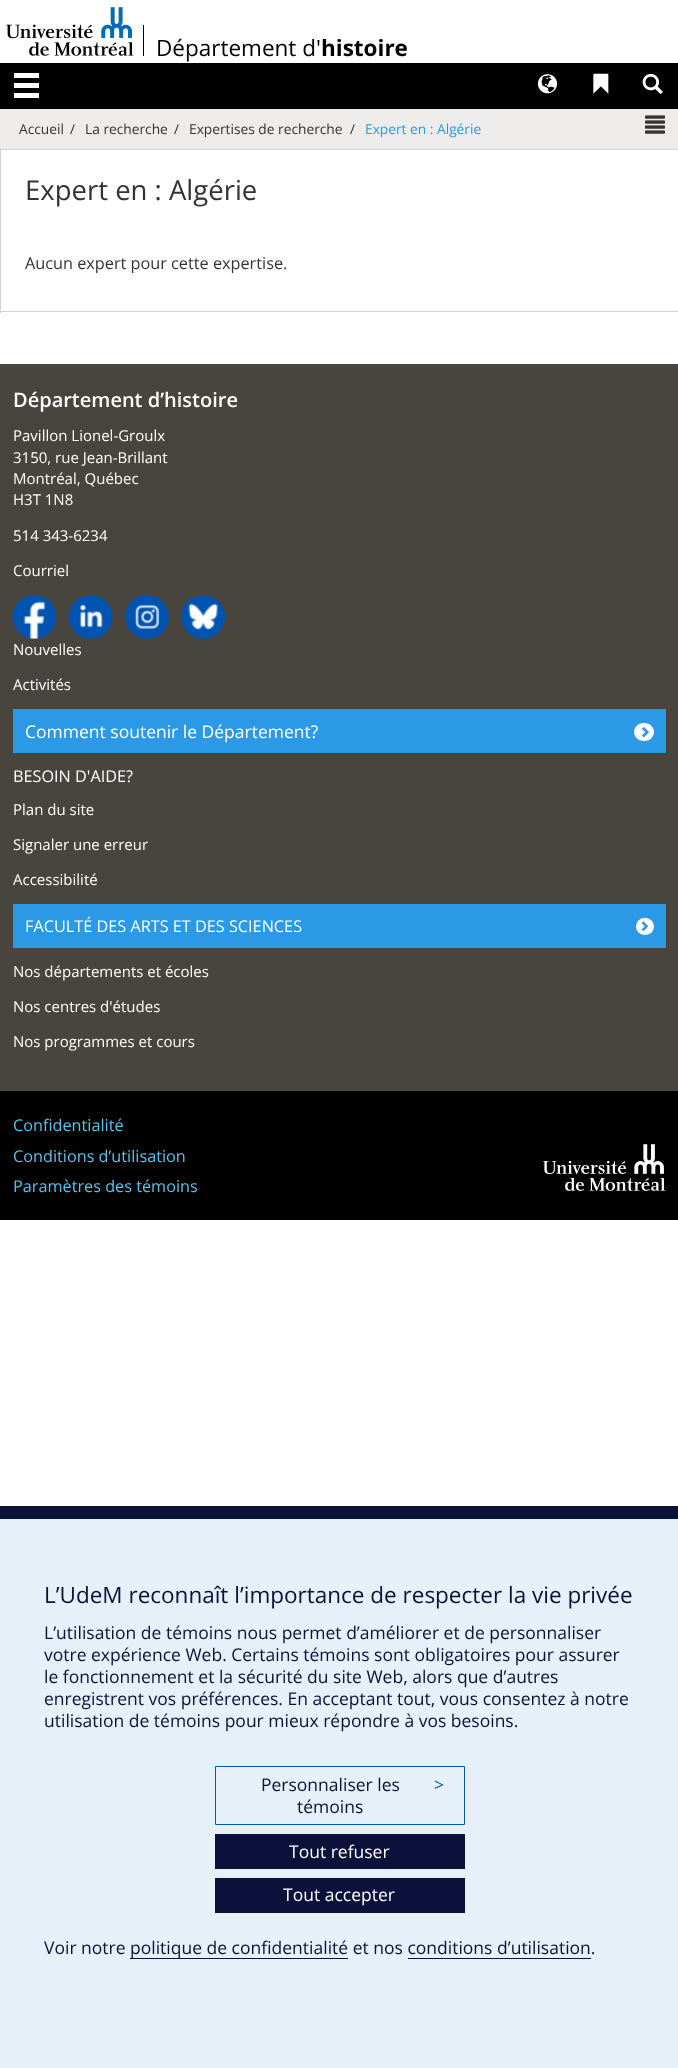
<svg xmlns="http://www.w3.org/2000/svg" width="678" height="2068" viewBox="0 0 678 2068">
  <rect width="100%" height="100%" fill="#fff"/>
  <image x="6" y="7" width="128" height="49" href="img/1.png"/>
  <path d="M143 25h1v31H143z" fill="#000"/>
  <path d="M0 63h678v46H0z" fill="#000"/>
  <path d="M14 73h25v5H14z" fill="#fff"/>
  <path d="M14 83h25v5H14z" fill="#fff"/>
  <path d="M14 93h25v5H14z" fill="#fff"/>
  <image x="537" y="74" width="21" height="20" href="img/2.png"/>
  <image x="593" y="73" width="16" height="21" href="img/3.png"/>
  <image x="642" y="73" width="21" height="21" href="img/4.png"/>
  <path d="M0 109h678v40H0z" fill="#eeebeb"/>
  <image x="645" y="115" width="20" height="19" href="img/5.png"/>
  <path d="M0 149h678v1H0z" fill="#d1d3d4"/>
  <path d="M0 149h1v102H0z" fill="#d1d3d4"/>
  <path d="M0 311h678v1H0z" fill="#d1d3d4"/>
  <path d="M0 251h1v62H0z" fill="#d1d3d4"/>
  <path d="M0 364h678v727H0z" fill="#48453e"/>
  <image x="12" y="595" width="45" height="44" href="img/6.png"/>
  <image x="68" y="595" width="45" height="44" href="img/7.png"/>
  <image x="125" y="595" width="44" height="44" href="img/8.png"/>
  <image x="181" y="595" width="44" height="44" href="img/9.png"/>
  <path d="M13 709h653v44H13z" fill="#2b99e6"/>
  <rect x="634" y="723" width="20" height="18" rx="9" fill="#fff"/>
  <image x="641" y="726" width="8" height="12" href="img/10.png"/>
  <path d="M13 904h653v44H13z" fill="#2b99e6"/>
  <rect x="636" y="918" width="18" height="17" rx="8.5" fill="#fff"/>
  <image x="641" y="921" width="8" height="11" href="img/11.png"/>
  <path d="M0 1091h678v129H0z" fill="#000"/>
  <image x="543" y="1144" width="123" height="47" href="img/12.png"/>
  <path d="M0 1519h678v549H0z" fill="#e5f0f8"/>
  <path d="M0 1506h678v13H0z" fill="#0b113a"/>
  <path d="M215.5 1766.5h249v58H215.5z" fill="none" stroke="#0057ac"/>
  <path d="M215 1834h250v35H215z" fill="#0b113a"/>
  <path d="M215 1878h250v35H215z" fill="#0b113a"/>
  <path d="M130 1958h218v1H130z" fill="#0b113a"/>
  <path d="M408 1958h183v1H408z" fill="#0b113a"/>
  <text x="156" y="56" font-family="Open Sans" font-size="22.5" fill="#000">Département d'</text>
  <text x="321" y="56" font-family="Open Sans" font-size="22.5" font-weight="bold" fill="#000">histoire</text>
  <g font-family="Open Sans" font-size="13.75" fill="#333">
    <text x="19" y="134">Accueil</text>
    <text x="70" y="134">/</text>
    <text x="85" y="134">La recherche</text>
    <text x="174" y="134">/</text>
    <text x="189" y="134">Expertises de recherche</text>
    <text x="350" y="134">/</text>
  </g>
  <text x="365" y="134" font-family="Open Sans" font-size="13.75" fill="#2b99e6">Expert en : Algérie</text>
  <text x="25" y="200" font-family="Open Sans" font-size="27.5" fill="#333">Expert en : Algérie</text>
  <text x="25" y="269" font-family="Open Sans" font-size="16.25" fill="#333">Aucun expert pour cette expertise.</text>
  <text x="13" y="407" font-family="Open Sans" font-size="20" font-weight="600" fill="#fff">Département d’histoire</text>
  <g font-family="Open Sans" font-size="15" fill="#fff">
    <text x="13" y="441">Pavillon Lionel-Groulx</text>
    <text x="13" y="463">3150, rue Jean-Brillant</text>
    <text x="13" y="484">Montréal, Québec</text>
    <text x="13" y="505">H3T 1N8</text>
    <text x="13" y="541">514 343-6234</text>
    <text x="13" y="576">Courriel</text>
    <text x="13" y="655">Nouvelles</text>
    <text x="13" y="690">Activités</text>
  </g>
  <text x="25" y="738" font-family="Open Sans" font-size="17.5" fill="#fff">Comment soutenir le Département?</text>
  <text x="13" y="782" font-family="Open Sans" font-size="16.25" fill="#fff">BESOIN D'AIDE?</text>
  <g font-family="Open Sans" font-size="15" fill="#fff">
    <text x="13" y="815">Plan du site</text>
    <text x="13" y="850">Signaler une erreur</text>
    <text x="13" y="885">Accessibilité</text>
  </g>
  <text x="25" y="932" font-family="Open Sans" font-size="16.25" fill="#fff">FACULTÉ DES ARTS ET DES SCIENCES</text>
  <g font-family="Open Sans" font-size="15" fill="#fff">
    <text x="13" y="977">Nos départements et écoles</text>
    <text x="13" y="1012">Nos centres d'études</text>
    <text x="13" y="1047">Nos programmes et cours</text>
  </g>
  <g font-family="Open Sans" font-size="16.25" fill="#5cc2ef">
    <text x="13" y="1131">Confidentialité</text>
    <text x="13" y="1162">Conditions d’utilisation</text>
    <text x="13" y="1192">Paramètres des témoins</text>
  </g>
  <text x="44" y="1603" font-family="Open Sans" font-size="22.5" fill="#0b113a">L’UdeM reconnaît l’importance de respecter la vie privée</text>
  <g font-family="Open Sans" font-size="17.5" fill="#0b113a">
    <text x="44" y="1639">L’utilisation de témoins nous permet d’améliorer et de personnaliser</text>
    <text x="44" y="1661">votre expérience Web. Certains témoins sont obligatoires pour assurer</text>
    <text x="44" y="1683">le fonctionnement et la sécurité du site Web, alors que d’autres</text>
    <text x="44" y="1705">enregistrent vos préférences. En acceptant tout, vous consentez à notre</text>
    <text x="44" y="1727">utilisation de témoins pour mieux répondre à vos besoins.</text>
    <text x="261" y="1791">Personnaliser les</text>
  </g>
  <text x="434" y="1791" font-family="Open Sans" font-size="17.5" fill="#0057ac">&gt;</text>
  <text x="297" y="1813" font-family="Open Sans" font-size="17.5" fill="#0b113a">témoins</text>
  <g font-family="Open Sans" font-size="17.5" fill="#fff">
    <text x="289" y="1858">Tout refuser</text>
    <text x="283" y="1901">Tout accepter</text>
  </g>
  <g font-family="Open Sans" font-size="17.5" fill="#0b113a">
    <text x="44" y="1954">Voir notre</text>
    <text x="130" y="1954">politique de confidentialité et nos conditions d’utilisation.</text>
  </g>
</svg>
